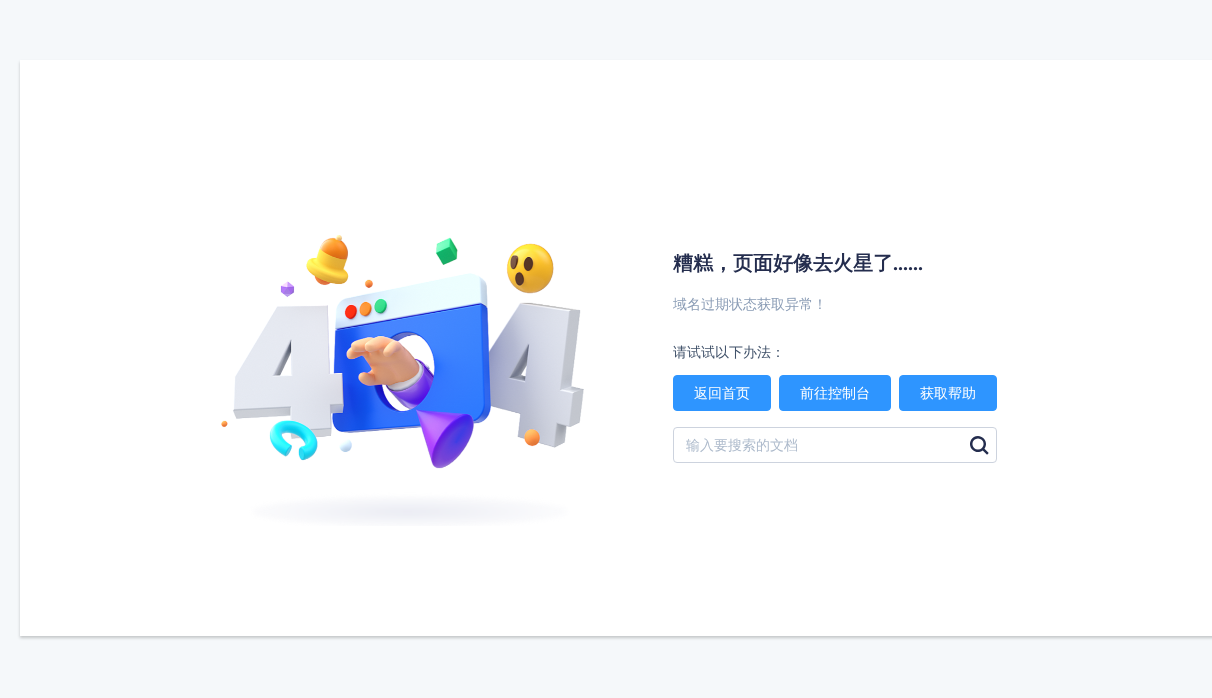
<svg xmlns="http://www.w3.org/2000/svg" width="1212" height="698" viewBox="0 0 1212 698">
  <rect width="100%" height="100%" fill="#f5f8fa"/>
  <path d="M20 62h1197v576H20z" fill="#00000033" filter="blur(1.5px)"/>
  <path d="M20 60h1192v576H20z" fill="#fff"/>
  <image x="221" y="235" width="363" height="291" href="img/1.png"/>
  <rect x="673.5" y="375.5" width="97" height="35" rx="3.5" fill="#2e95ff" stroke="#2e95ff"/>
  <rect x="779.5" y="375.5" width="111" height="35" rx="3.5" fill="#2e95ff" stroke="#2e95ff"/>
  <rect x="899.5" y="375.5" width="97" height="35" rx="3.5" fill="#2e95ff" stroke="#2e95ff"/>
  <rect x="673.5" y="427.5" width="323" height="35" rx="3.5" fill="none" stroke="#cdd3de"/>
  <image x="970" y="436" width="19" height="19" href="img/2.png"/>
  <text x="673" y="270" font-family="WenQuanYi Zen Hei" font-size="20" font-weight="bold" fill="#242d4e">糟糕，页面好像去火星了</text>
  <text x="893" y="270" font-family="Liberation Serif" font-size="20" font-weight="bold" fill="#242d4e">......</text>
  <text x="673" y="309" font-family="WenQuanYi Zen Hei" font-size="14" font-weight="500" fill="#8b9db6">域名过期状态获取异常！</text>
  <text x="673" y="357" font-family="WenQuanYi Zen Hei" font-size="14" font-weight="500" fill="#41526a">请试试以下办法：</text>
  <g font-family="WenQuanYi Zen Hei" font-size="14" font-weight="500" fill="#fff">
    <text x="694" y="398">返回首页</text>
    <text x="800" y="398">前往控制台</text>
    <text x="920" y="398">获取帮助</text>
  </g>
  <text x="686" y="450" font-family="WenQuanYi Zen Hei" font-size="14" font-weight="500" fill="#aebbcc">输入要搜索的文档</text>
</svg>
